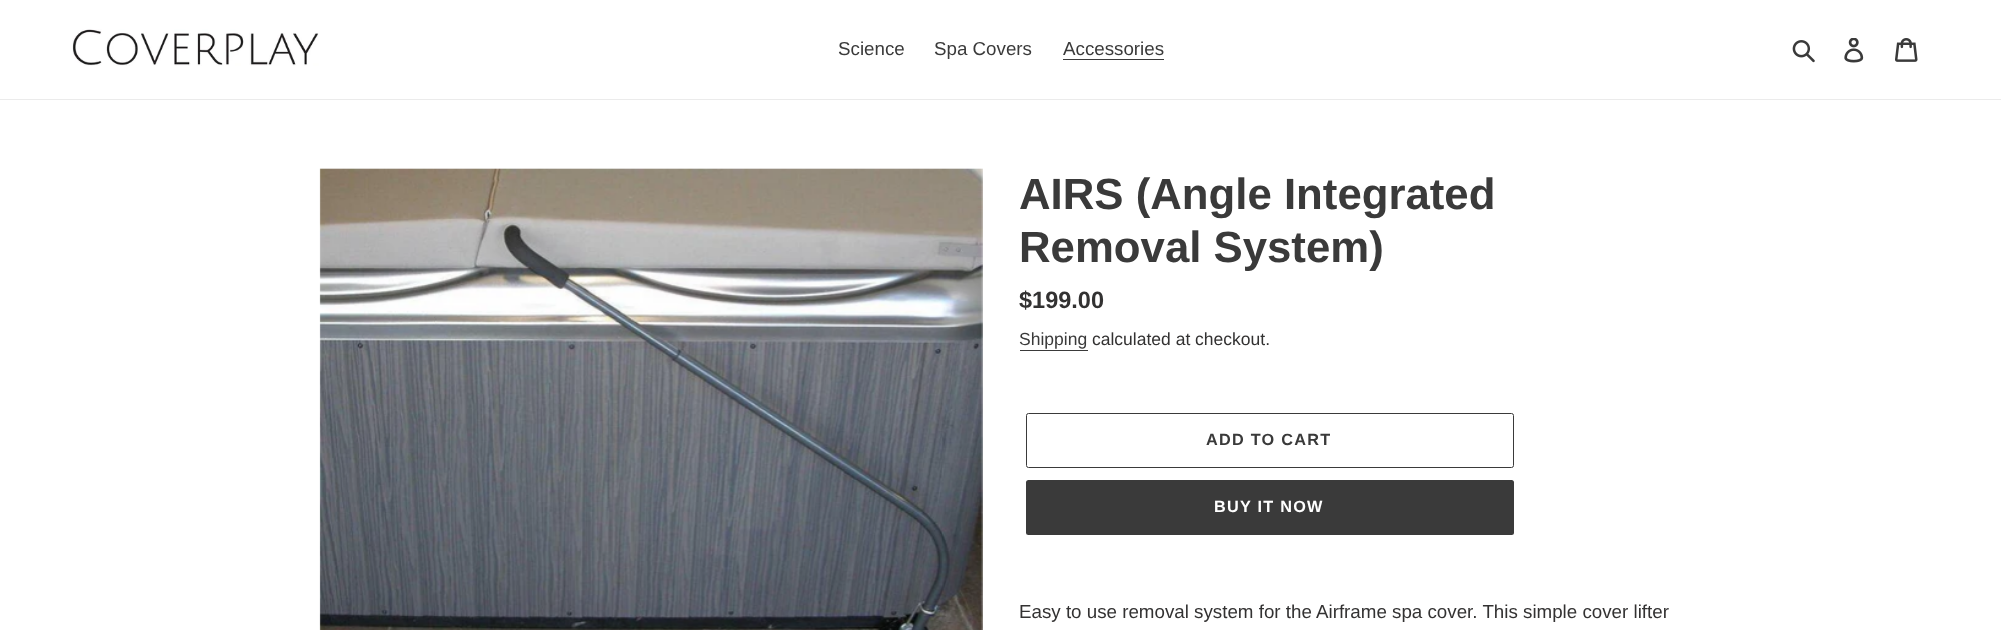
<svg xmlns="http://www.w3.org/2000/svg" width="2001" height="630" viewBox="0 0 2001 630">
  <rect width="100%" height="100%" fill="#fff"/>
  <path d="M0 99h2001v1H0z" fill="#ebebeb"/>
  <image x="72" y="29" width="247" height="37" href="img/1.png"/>
  <path d="M1063 59h101v1H1063z" fill="#3a3a3a"/>
  <image x="1792" y="40" width="23" height="23" href="img/2.png"/>
  <image x="1844" y="38" width="20" height="25" href="img/3.png"/>
  <image x="1895" y="38" width="23" height="24" href="img/4.png"/>
  <image x="319" y="168" width="664" height="462" href="img/5.png"/>
  <path d="M1020 350h68v1H1020z" fill="#3a3a3a"/>
  <rect x="1026.5" y="413.5" width="487" height="54" rx="2" fill="none" stroke="#3a3a3a"/>
  <rect x="1026" y="480" width="488" height="55" rx="2.5" fill="#3a3a3a"/>
  <g font-family="Liberation Sans" font-size="18.75" fill="#3a3a3a">
    <text x="838" y="55">Science</text>
    <text x="934" y="55">Spa Covers</text>
    <text x="1063" y="55">Accessories</text>
  </g>
  <g font-family="Liberation Sans" font-size="43.75" font-weight="bold" fill="#3a3a3a">
    <text x="1019" y="209">AIRS (Angle Integrated</text>
    <text x="1019" y="262">Removal System)</text>
  </g>
  <text x="1019" y="308" font-family="Liberation Sans" font-size="23.5" font-weight="bold" fill="#333232">$199.00</text>
  <text x="1019" y="345" font-family="Liberation Sans" font-size="17.5" fill="#3a3a3a">Shipping</text>
  <text x="1092" y="345" font-family="Liberation Sans" font-size="17.5" fill="#333232">calculated at checkout.</text>
  <text x="1206" y="445" font-family="Liberation Sans" font-size="16.25" font-weight="bold" letter-spacing="1.25" fill="#3a3a3a">ADD TO CART</text>
  <text x="1214" y="512" font-family="Liberation Sans" font-size="16.25" font-weight="bold" letter-spacing="1.25" fill="#fff">BUY IT NOW</text>
  <text x="1019" y="618" font-family="Liberation Sans" font-size="18.75" fill="#333232">Easy to use removal system for the Airframe spa cover. This simple cover lifter</text>
</svg>
